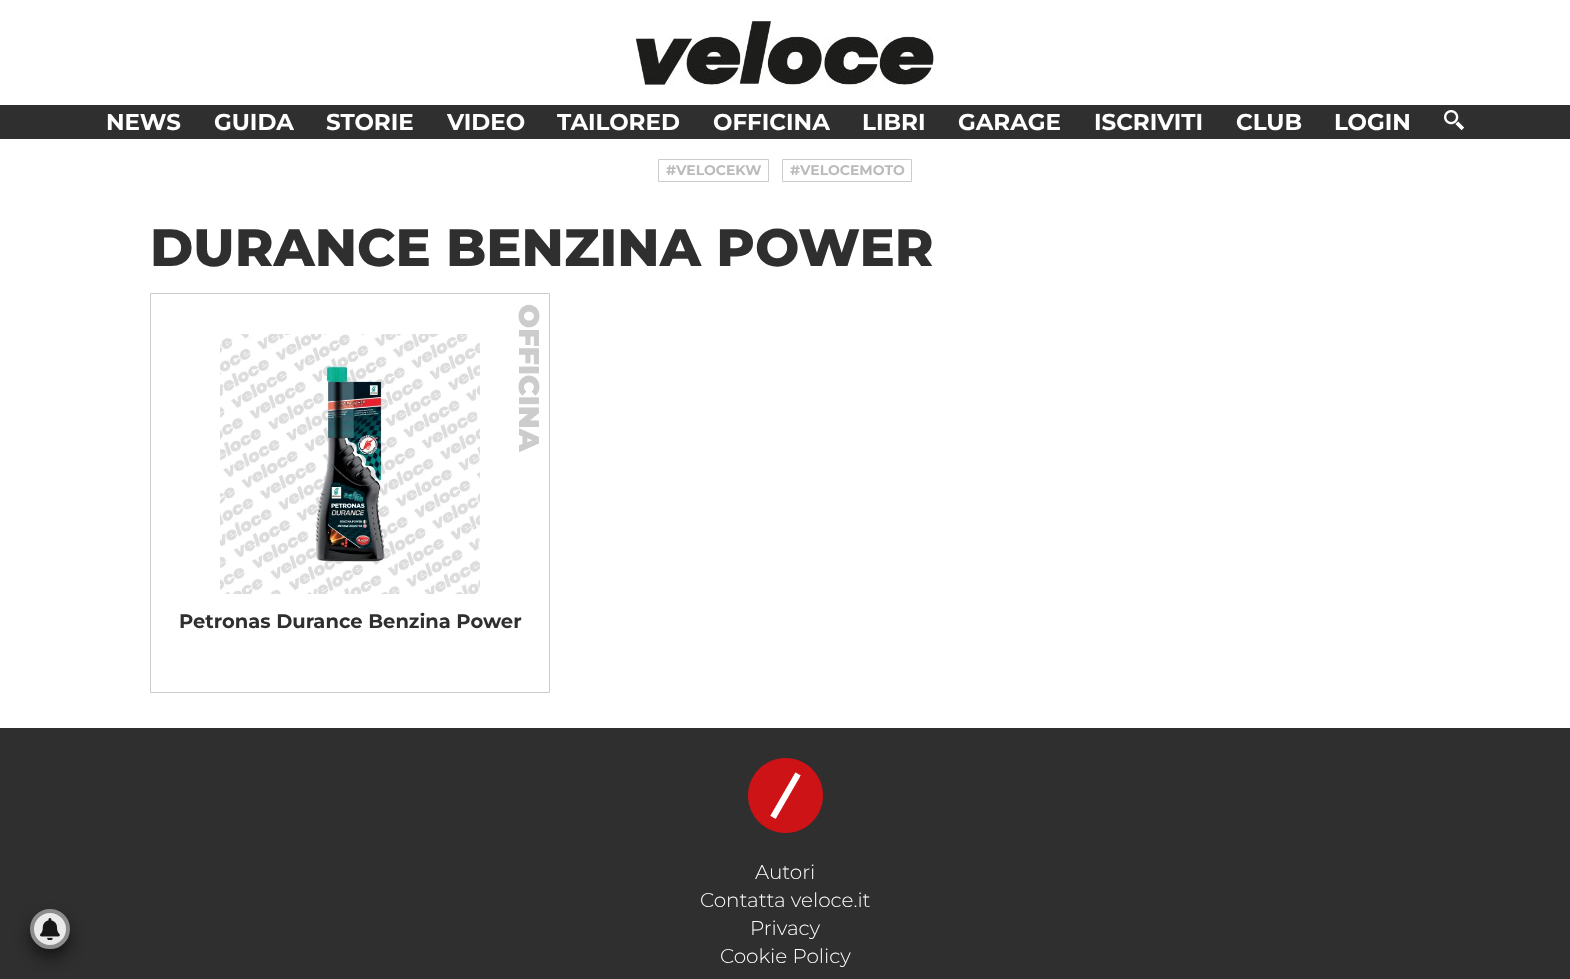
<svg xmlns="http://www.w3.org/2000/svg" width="1570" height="979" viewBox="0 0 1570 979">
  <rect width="100%" height="100%" fill="#fff"/>
  <image x="635" y="21" width="300" height="64" href="img/1.png"/>
  <path d="M0 105h1570v34H0z" fill="#2f2f2f"/>
  <image x="1444" y="110" width="20" height="20" href="img/2.png"/>
  <path d="M658.5 159.5h110v22H658.5z" fill="none" stroke="#ccc"/>
  <path d="M782.5 159.5h129v22H782.5z" fill="none" stroke="#ccc"/>
  <path d="M150.5 293.5h399v399H150.5z" fill="none" stroke="#ccc"/>
  <image x="220" y="334" width="260" height="260" href="img/3.png"/>
  <path d="M0 728h1570v251H0z" fill="#2f2f2f"/>
  <rect x="30" y="918" width="40" height="40" rx="20" fill="#05050599" filter="blur(7.5px)"/>
  <circle cx="50" cy="929" r="18" fill="#eaeaea" stroke="#8d8d8d" stroke-width="4"/>
  <image x="40" y="918" width="20" height="22" href="img/4.png"/>
  <image x="748" y="758" width="75" height="75" href="img/5.png"/>
  <g font-family="Montserrat" font-size="23" font-weight="bold" fill="#fff">
    <text x="106" y="130">NEWS</text>
    <text x="214" y="130">GUIDA</text>
    <text x="326" y="130">STORIE</text>
    <text x="447" y="130">VIDEO</text>
    <text x="557" y="130">TAILORED</text>
    <text x="713" y="130">OFFICINA</text>
    <text x="862" y="130">LIBRI</text>
    <text x="958" y="130">GARAGE</text>
    <text x="1094" y="130">ISCRIVITI</text>
    <text x="1236" y="130">CLUB</text>
    <text x="1334" y="130">LOGIN</text>
  </g>
  <g font-family="Montserrat" font-size="14" font-weight="bold" fill="#bbb">
    <text x="666" y="175">#VELOCEKW</text>
    <text x="790" y="175">#VELOCEMOTO</text>
  </g>
  <text x="150" y="266" font-family="Montserrat" font-size="52.5" font-weight="800" fill="#2f2f2f">DURANCE BENZINA POWER</text>
  <text x="519" y="304" transform="rotate(90 519 304)" font-family="Montserrat" font-size="28.5" font-weight="900" fill="#ccc">OFFICINA</text>
  <text x="179" y="628" font-family="Montserrat" font-size="19.5" font-weight="bold" fill="#2f2f2f">Petronas Durance Benzina Power</text>
  <g font-family="Montserrat" font-size="20" font-weight="300" fill="#fff">
    <text x="755" y="879">Autori</text>
    <text x="700" y="907">Contatta veloce.it</text>
    <text x="750" y="935">Privacy</text>
    <text x="720" y="963">Cookie Policy</text>
  </g>
</svg>
